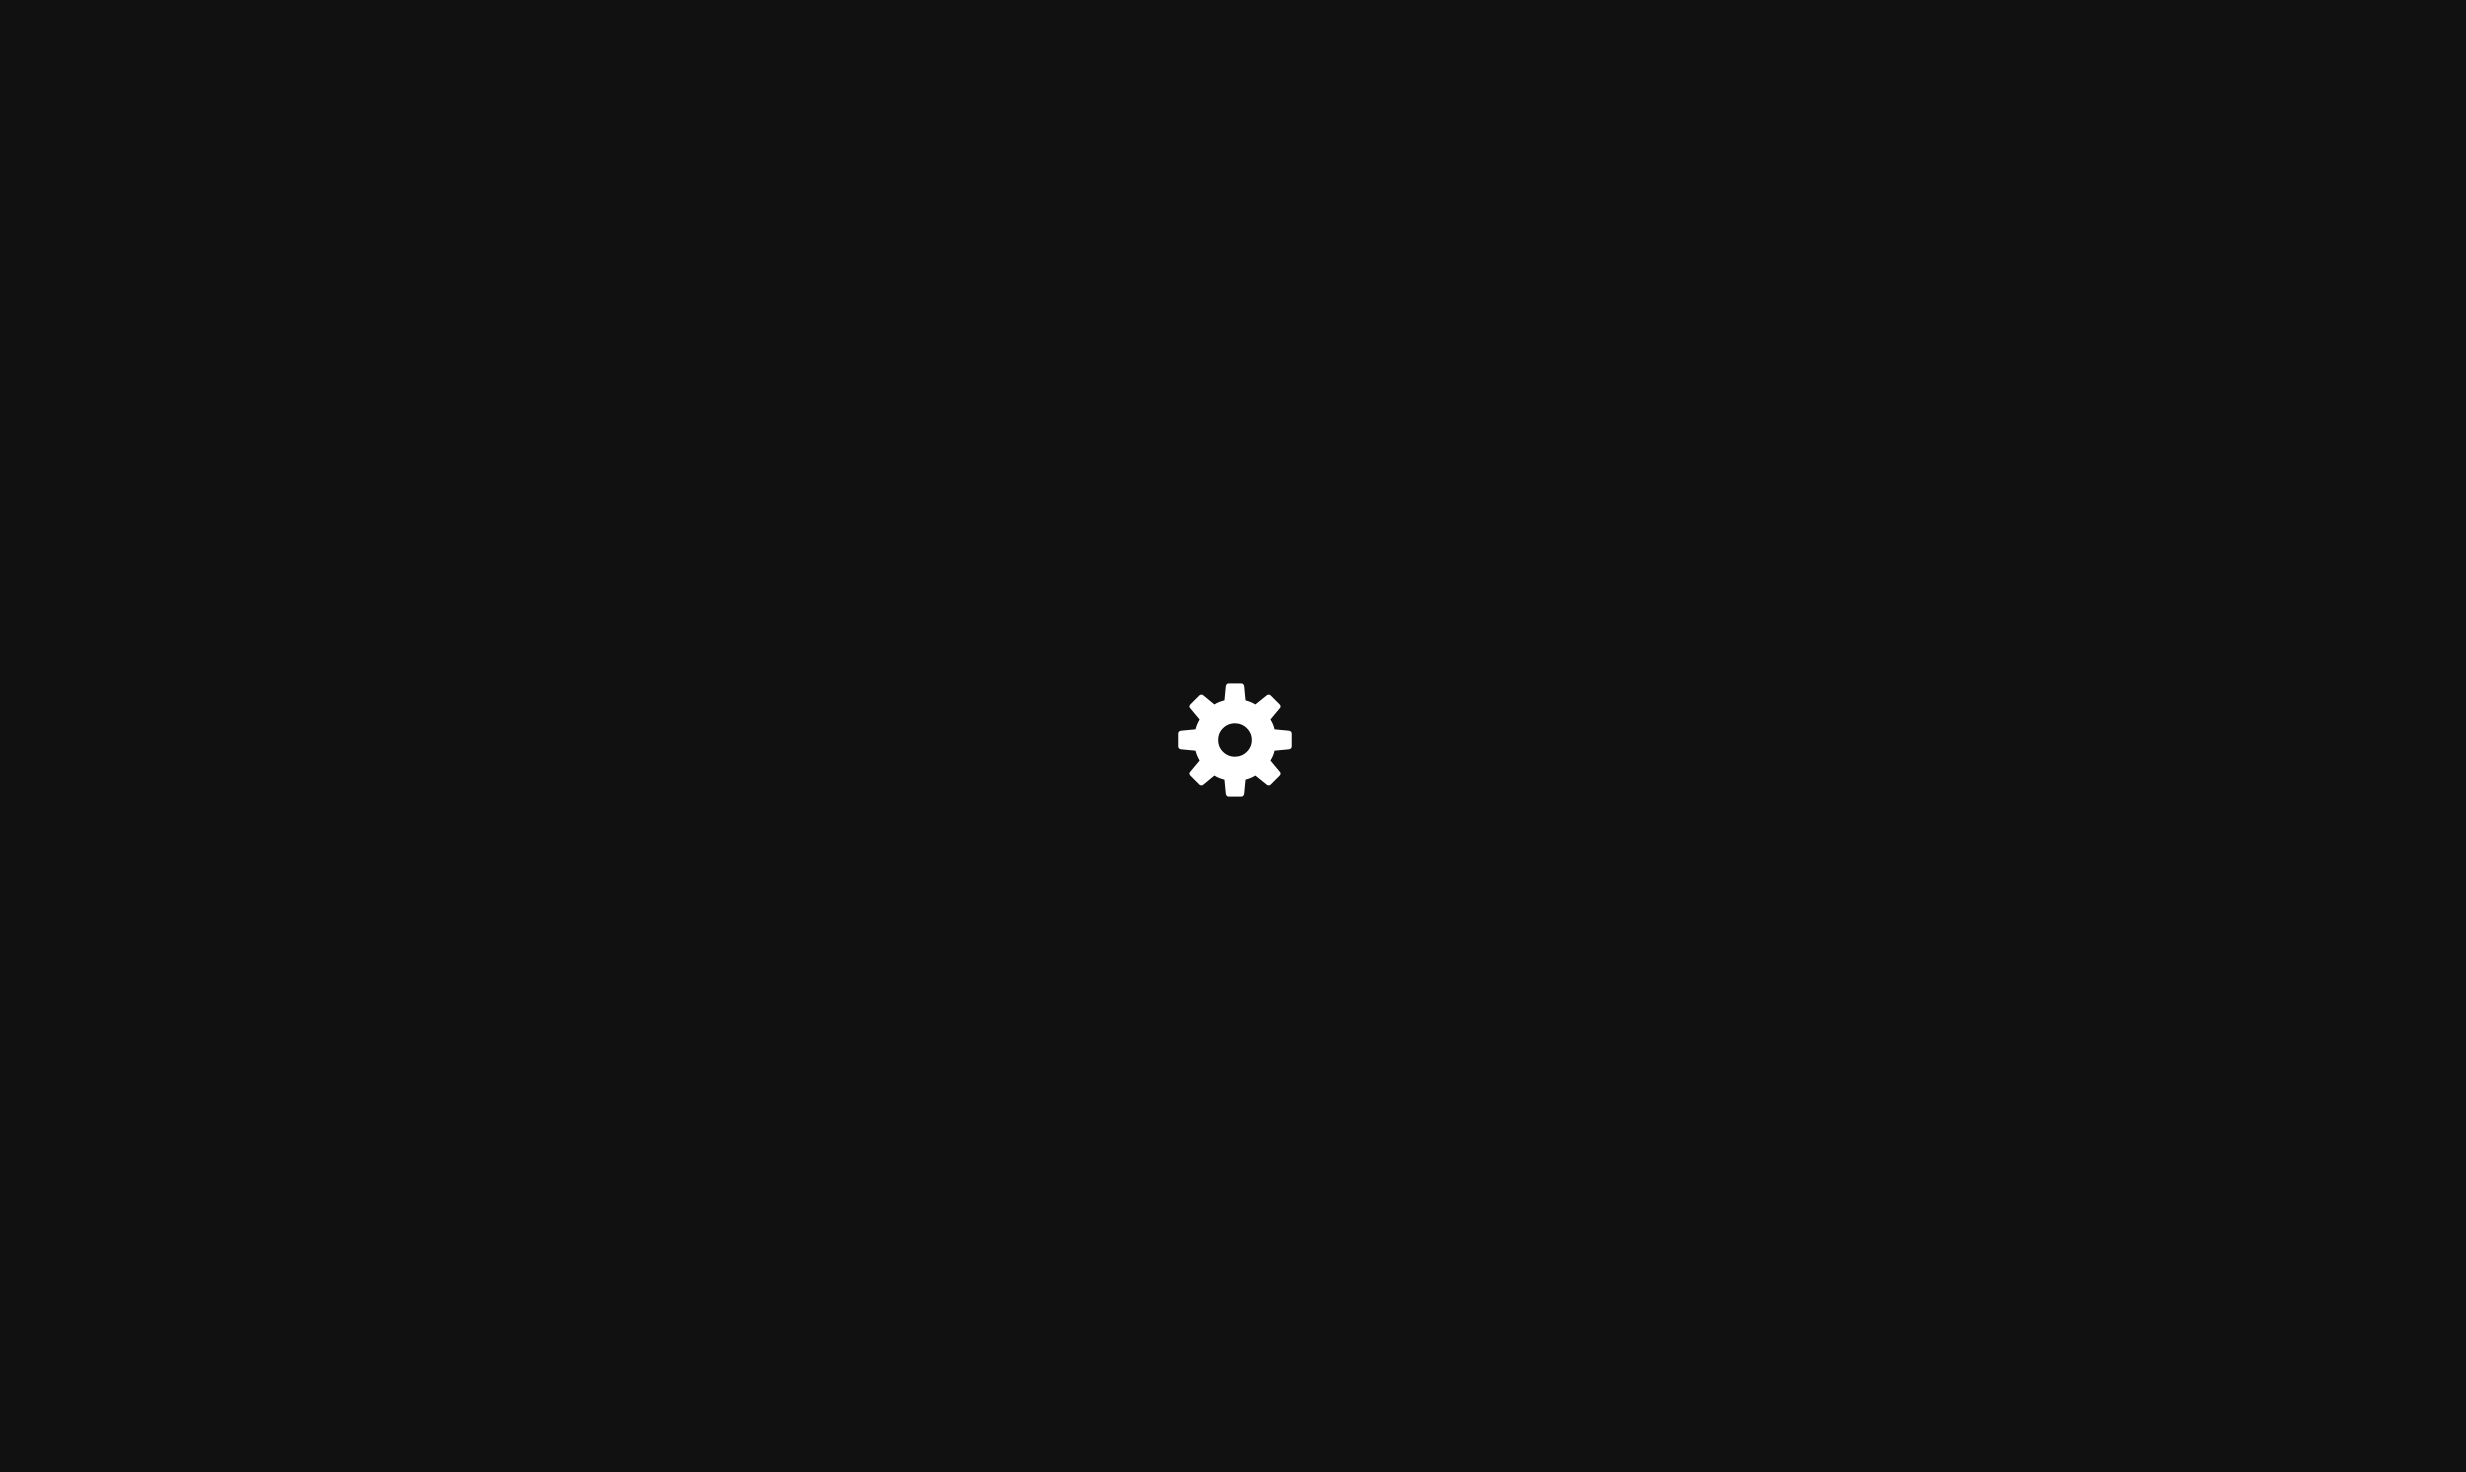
<svg xmlns="http://www.w3.org/2000/svg" width="2466" height="1472" viewBox="0 0 2466 1472">
  <rect width="100%" height="100%" fill="#111"/>
  <image x="1178" y="683" width="114" height="114" href="img/1.png"/>
</svg>
